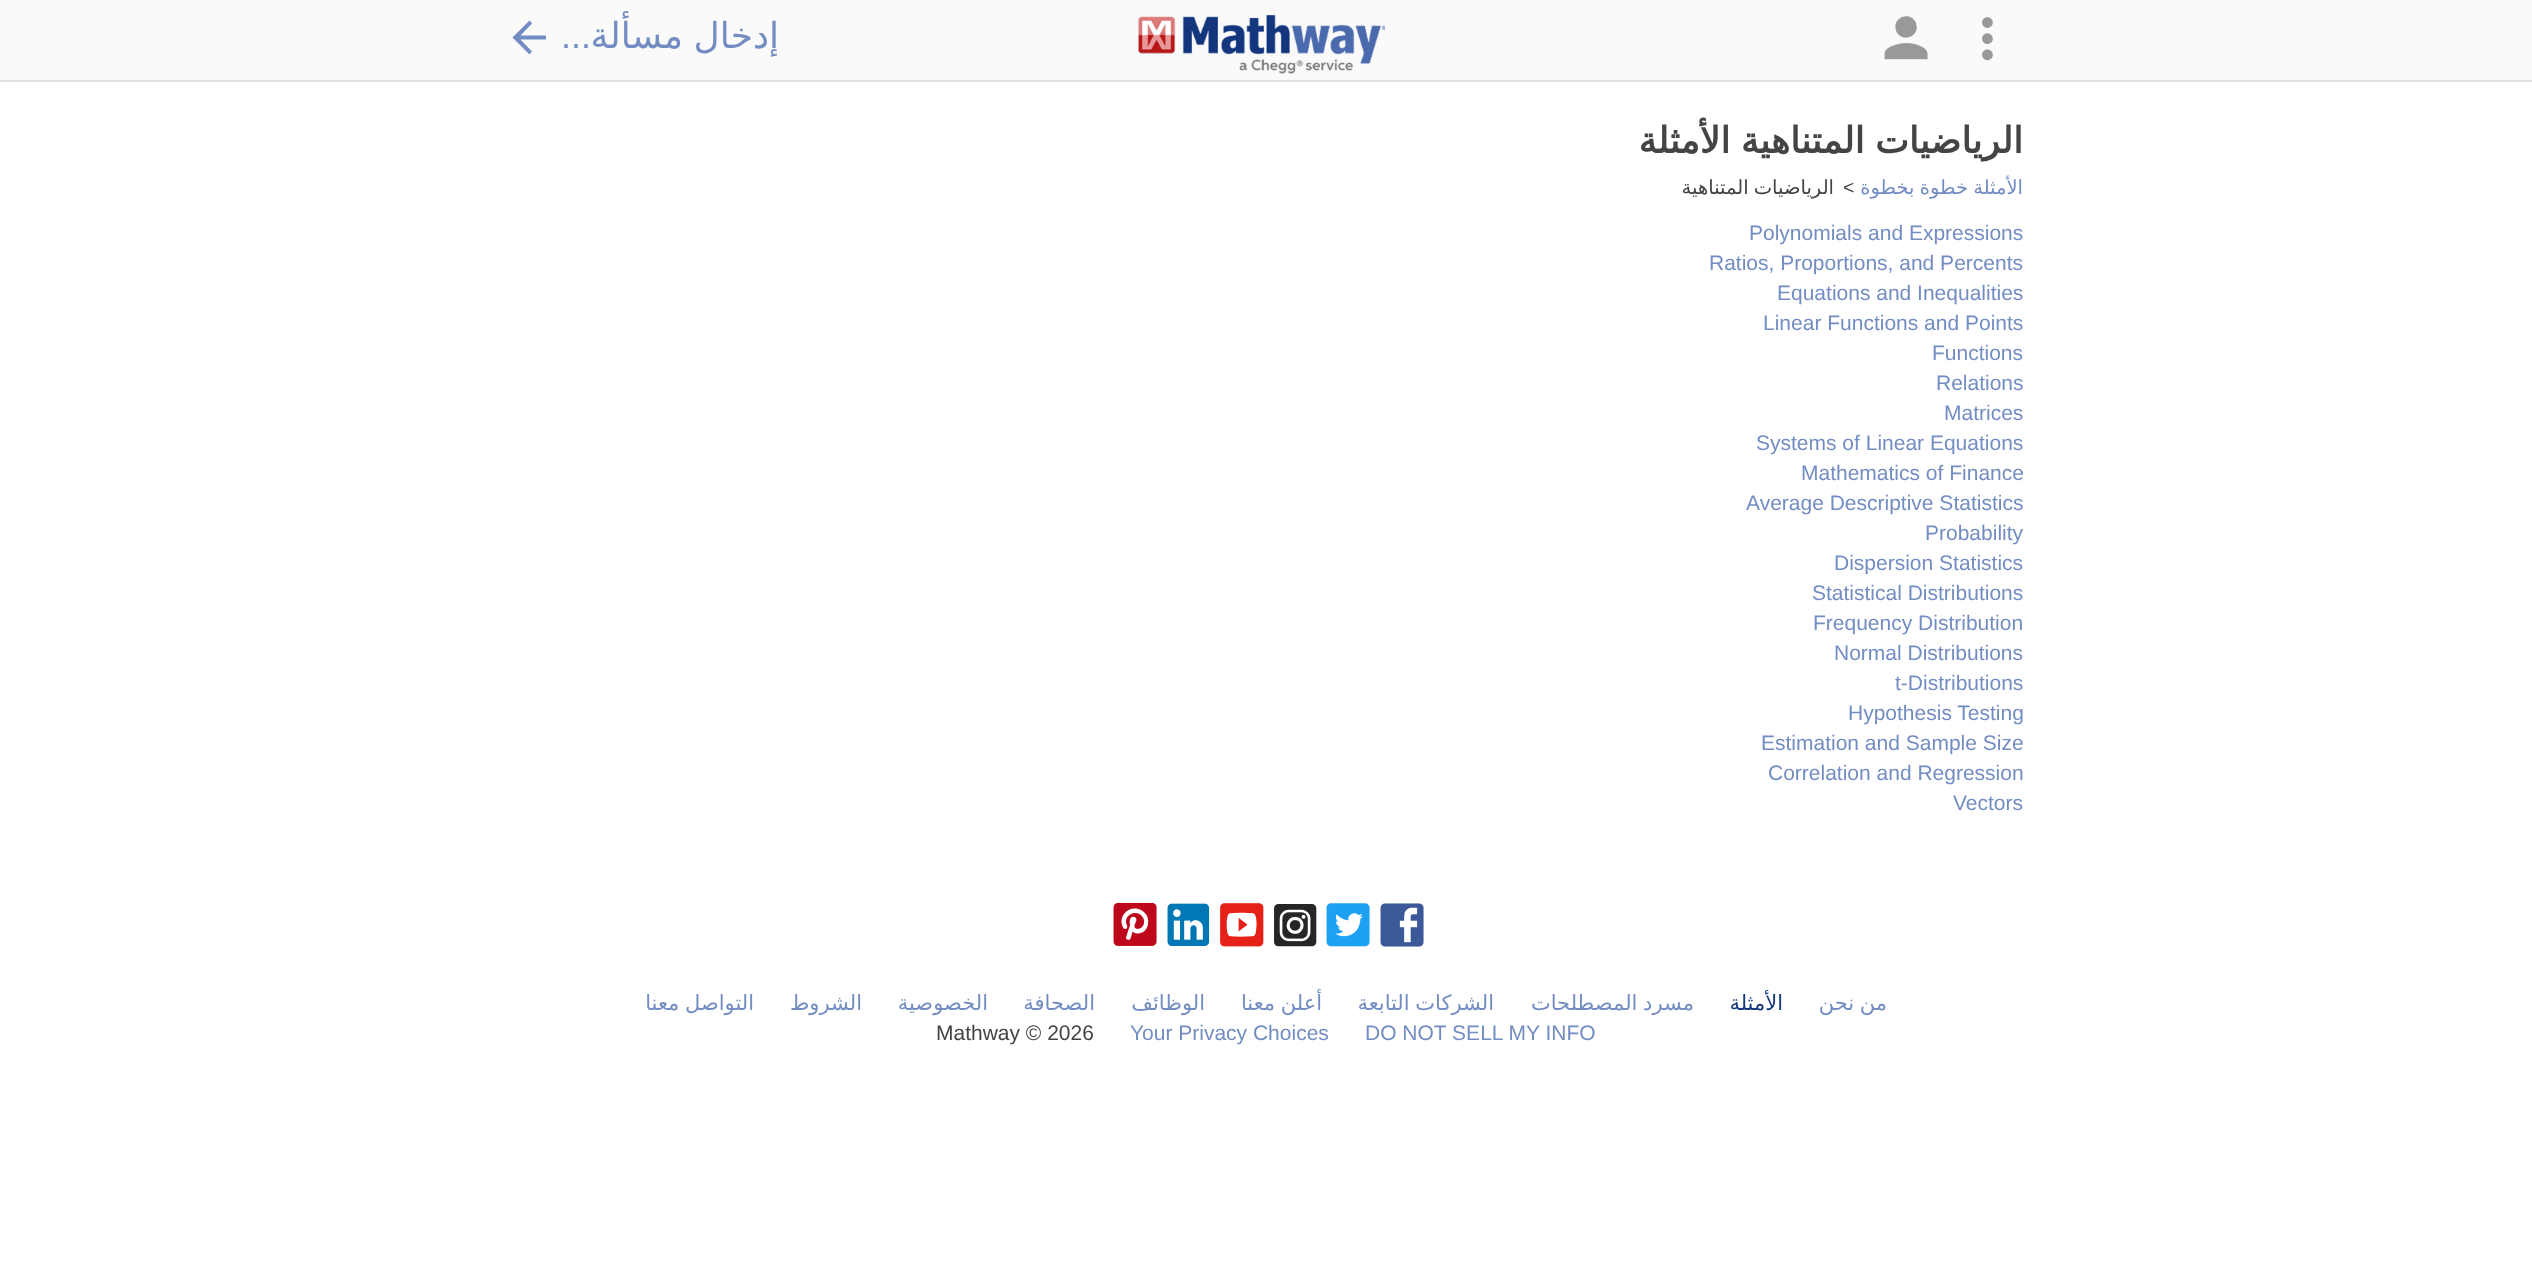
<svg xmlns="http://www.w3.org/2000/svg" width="2532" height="1276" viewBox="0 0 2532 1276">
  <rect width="100%" height="100%" fill="#fff"/>
  <path d="M0 80h2532v2H0z" fill="#e1e1e1"/>
  <path d="M0 0h2532v80H0z" fill="#fafafa"/>
  <path d="M529.5 20.5L512.5 37.5L529.5 54.5L532 51.5L520.5 39.5H546V35.5H520.5L532 23.5Z" fill="#738dc3"/>
  <image x="1138" y="15" width="248" height="59" href="img/1.png"/>
  <image x="1884" y="16" width="44" height="44" href="img/2.png"/>
  <image x="1982" y="17" width="11" height="44" href="img/3.png"/>
  <image x="1113" y="902" width="44" height="44" href="img/4.png"/>
  <image x="1167" y="903" width="43" height="43" href="img/5.png"/>
  <image x="1220" y="903" width="44" height="44" href="img/6.png"/>
  <image x="1274" y="904" width="43" height="43" href="img/7.png"/>
  <image x="1326" y="903" width="44" height="44" href="img/8.png"/>
  <image x="1380" y="903" width="44" height="44" href="img/9.png"/>
  <text x="591" y="48" font-family="Liberation Sans" font-size="36" direction="rtl" fill="#738dc3">...</text>
  <text x="779" y="48" word-spacing="-1" font-family="DejaVu Sans" font-size="36" direction="rtl" fill="#738dc3">إدخال مسألة</text>
  <text x="2023" y="153" word-spacing="-1" font-family="DejaVu Sans" font-size="36" font-weight="bold" direction="rtl" fill="#444">الرياضيات المتناهية الأمثلة</text>
  <text x="1834" y="194" word-spacing="-1" font-family="DejaVu Sans" font-size="19.5" direction="rtl" fill="#444">الرياضيات المتناهية</text>
  <text x="1843" y="194" font-family="Liberation Sans" font-size="19.5" fill="#444">&lt;</text>
  <text x="2023" y="194" word-spacing="-1" font-family="DejaVu Sans" font-size="19.5" direction="rtl" fill="#738dc3">الأمثلة خطوة بخطوة</text>
  <g font-family="Liberation Sans" font-size="21" fill="#738dc3">
    <text x="1749" y="240">Polynomials and Expressions</text>
    <text x="1709" y="270">Ratios, Proportions, and Percents</text>
    <text x="1777" y="300">Equations and Inequalities</text>
    <text x="1763" y="330">Linear Functions and Points</text>
    <text x="1932" y="360">Functions</text>
    <text x="1936" y="390">Relations</text>
    <text x="1944" y="420">Matrices</text>
    <text x="1756" y="450">Systems of Linear Equations</text>
    <text x="1801" y="480">Mathematics of Finance</text>
    <text x="1746" y="510">Average Descriptive Statistics</text>
    <text x="1925" y="540">Probability</text>
    <text x="1834" y="570">Dispersion Statistics</text>
    <text x="1812" y="600">Statistical Distributions</text>
    <text x="1813" y="630">Frequency Distribution</text>
    <text x="1834" y="660">Normal Distributions</text>
    <text x="1895" y="690">t-Distributions</text>
    <text x="1848" y="720">Hypothesis Testing</text>
    <text x="1761" y="750">Estimation and Sample Size</text>
    <text x="1768" y="780">Correlation and Regression</text>
    <text x="1953" y="810">Vectors</text>
  </g>
  <g font-family="DejaVu Sans" font-size="21" direction="rtl" fill="#738dc3">
    <text x="754" y="1010" word-spacing="-1">التواصل معنا</text>
    <text x="862" y="1010">الشروط</text>
    <text x="988" y="1010">الخصوصية</text>
    <text x="1095" y="1010">الصحافة</text>
    <text x="1205" y="1010">الوظائف</text>
    <text x="1322" y="1010" word-spacing="-1">أعلن معنا</text>
    <text x="1494" y="1010" word-spacing="-1">الشركات التابعة</text>
    <text x="1694" y="1010" word-spacing="-1">مسرد المصطلحات</text>
  </g>
  <text x="1783" y="1010" font-family="DejaVu Sans" font-size="21" direction="rtl" fill="#16387c">الأمثلة</text>
  <text x="1887" y="1010" word-spacing="-1" font-family="DejaVu Sans" font-size="21" direction="rtl" fill="#738dc3">من نحن</text>
  <text x="936" y="1040" font-family="Liberation Sans" font-size="21" fill="#444">Mathway © 2026</text>
  <g font-family="Liberation Sans" font-size="21" fill="#738dc3">
    <text x="1130" y="1040">Your Privacy Choices</text>
    <text x="1365" y="1040">DO NOT SELL MY INFO</text>
  </g>
</svg>
